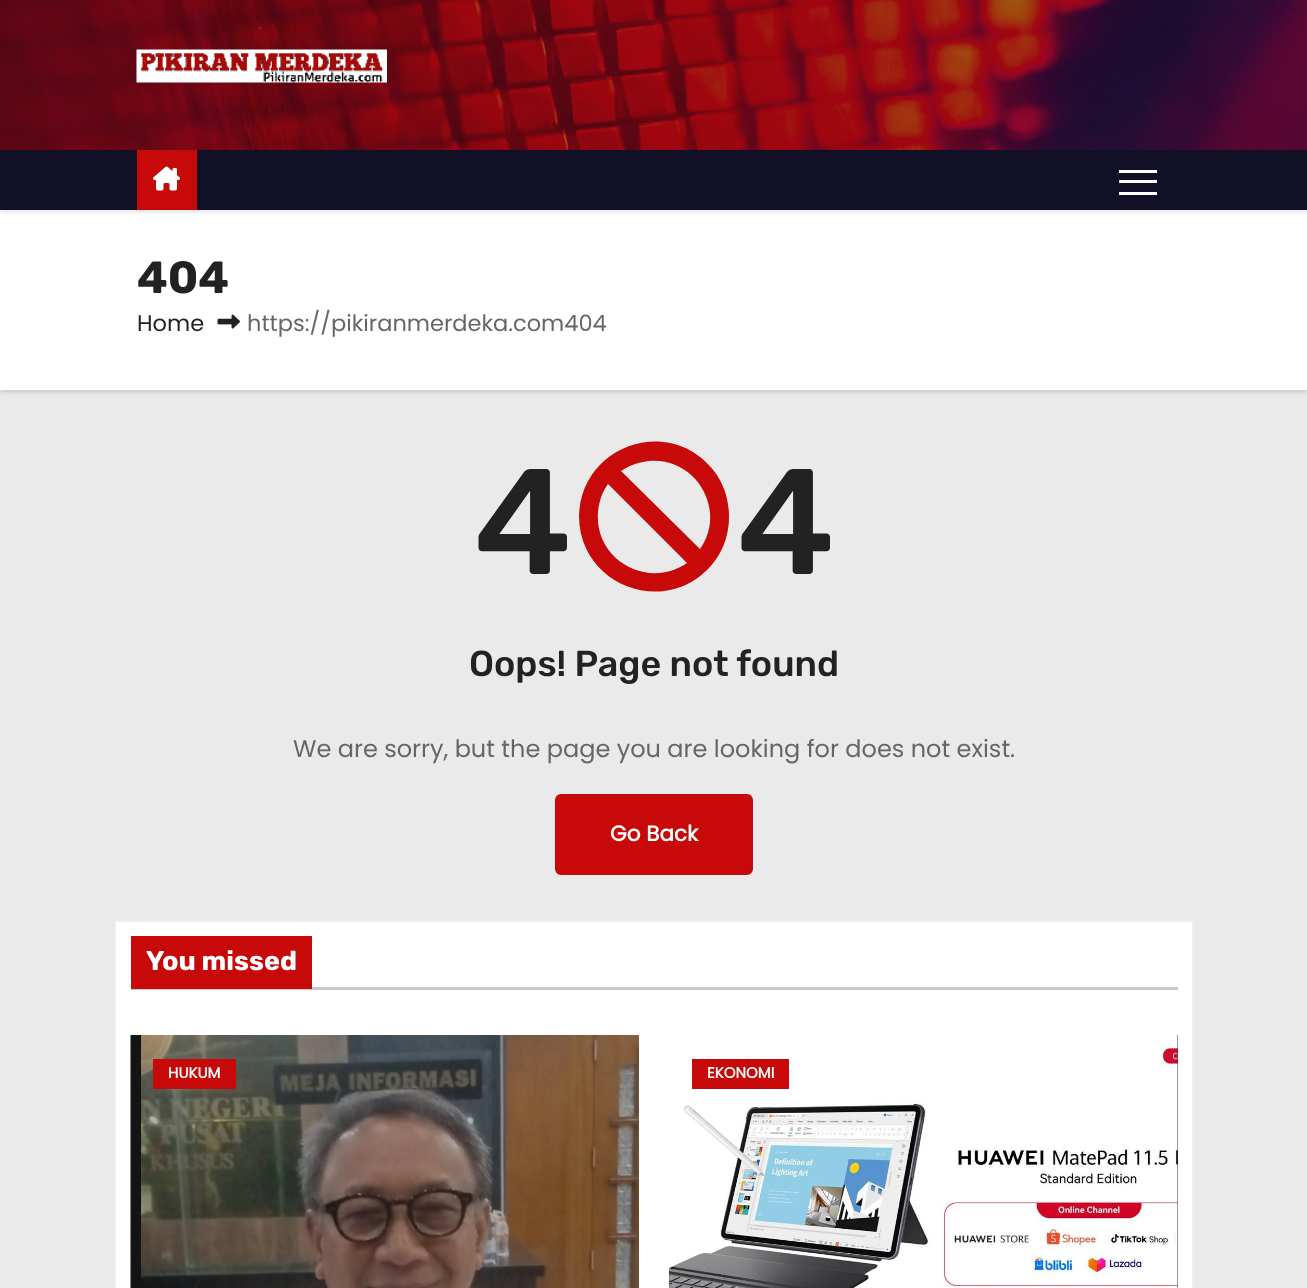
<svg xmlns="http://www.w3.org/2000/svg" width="1307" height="1288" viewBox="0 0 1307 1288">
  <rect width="100%" height="100%" fill="#eaeaea"/>
  <image x="0" y="0" width="1307" height="150" href="img/1.png"/>
  <image x="136" y="49" width="251" height="34" href="img/2.png"/>
  <path d="M0 212h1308v180H0z" fill="#00000026" filter="blur(2px)"/>
  <path d="M0 210h1307v180H0z" fill="#fff"/>
  <path d="M0 153h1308v60H0z" fill="#00000014" filter="blur(1.5px)"/>
  <path d="M0 150h1307v60H0z" fill="#121026"/>
  <path d="M137 150h60v60H137z" fill="#c70909"/>
  <image x="153" y="166" width="27" height="25" href="img/3.png"/>
  <path d="M1119 170h38v3H1119z" fill="#fff"/>
  <path d="M1119 180h38v3H1119z" fill="#fff"/>
  <path d="M1119 192h38v3H1119z" fill="#fff"/>
  <image x="217" y="314" width="23" height="15" href="img/4.png"/>
  <path d="M687 563L608 484C602 492 599 502 598 512C594 560 648 590 687 563ZM700 549C727 511 697 457 649 461C639 462 630 465 621 471ZM579 517C580 445 670 414 714 471C724 484 729 500 729 517C729 533 724 549 714 562C670 619 580 588 579 517Z" fill="#c70909"/>
  <rect x="556.5" y="795.5" width="195" height="78" rx="4.5" fill="#c70909" stroke="#c70909" stroke-width="3"/>
  <path d="M115 921h1078v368H115z" fill="#fff" stroke="#eee" stroke-width="2"/>
  <path d="M131 987h1047v3H131z" fill="#c8c8cd"/>
  <path d="M131 936h181v53H131z" fill="#c70909"/>
  <image x="130" y="1035" width="509" height="253" href="img/5.png"/>
  <path d="M153 1059h83v30H153z" fill="#c70909"/>
  <path d="M1177 1035h1v253H1177z" fill="#333"/>
  <image x="669" y="1035" width="509" height="253" href="img/6.png"/>
  <path d="M692 1059h97v30H692z" fill="#c70909"/>
  <text x="137" y="293" font-family="Rubik" font-size="45" font-weight="bold" fill="#222">404</text>
  <text x="137" y="331" font-family="Poppins" font-size="22.5" fill="#222">Home</text>
  <text x="247" y="331" font-family="Poppins" font-size="22.5" fill="#666">https://pikiranmerdeka.com404</text>
  <g font-family="Rubik" font-size="150" font-weight="500" fill="#222">
    <text x="474" y="574">4</text>
    <text x="737" y="574">4</text>
  </g>
  <text x="469" y="676" font-family="Rubik" font-size="36" font-weight="500" fill="#222">Oops! Page not found</text>
  <text x="293" y="757" font-family="Poppins" font-size="24" fill="#666">We are sorry, but the page you are looking for does not exist.</text>
  <text x="610" y="841" font-family="Poppins" font-size="21.5" font-weight="bold" fill="#fff">Go Back</text>
  <text x="146" y="970" font-family="Rubik" font-size="27" font-weight="bold" fill="#fff">You missed</text>
  <g font-family="Poppins" font-size="15" font-weight="bold" fill="#fff">
    <text x="168" y="1078">HUKUM</text>
    <text x="707" y="1078">EKONOMI</text>
  </g>
</svg>
